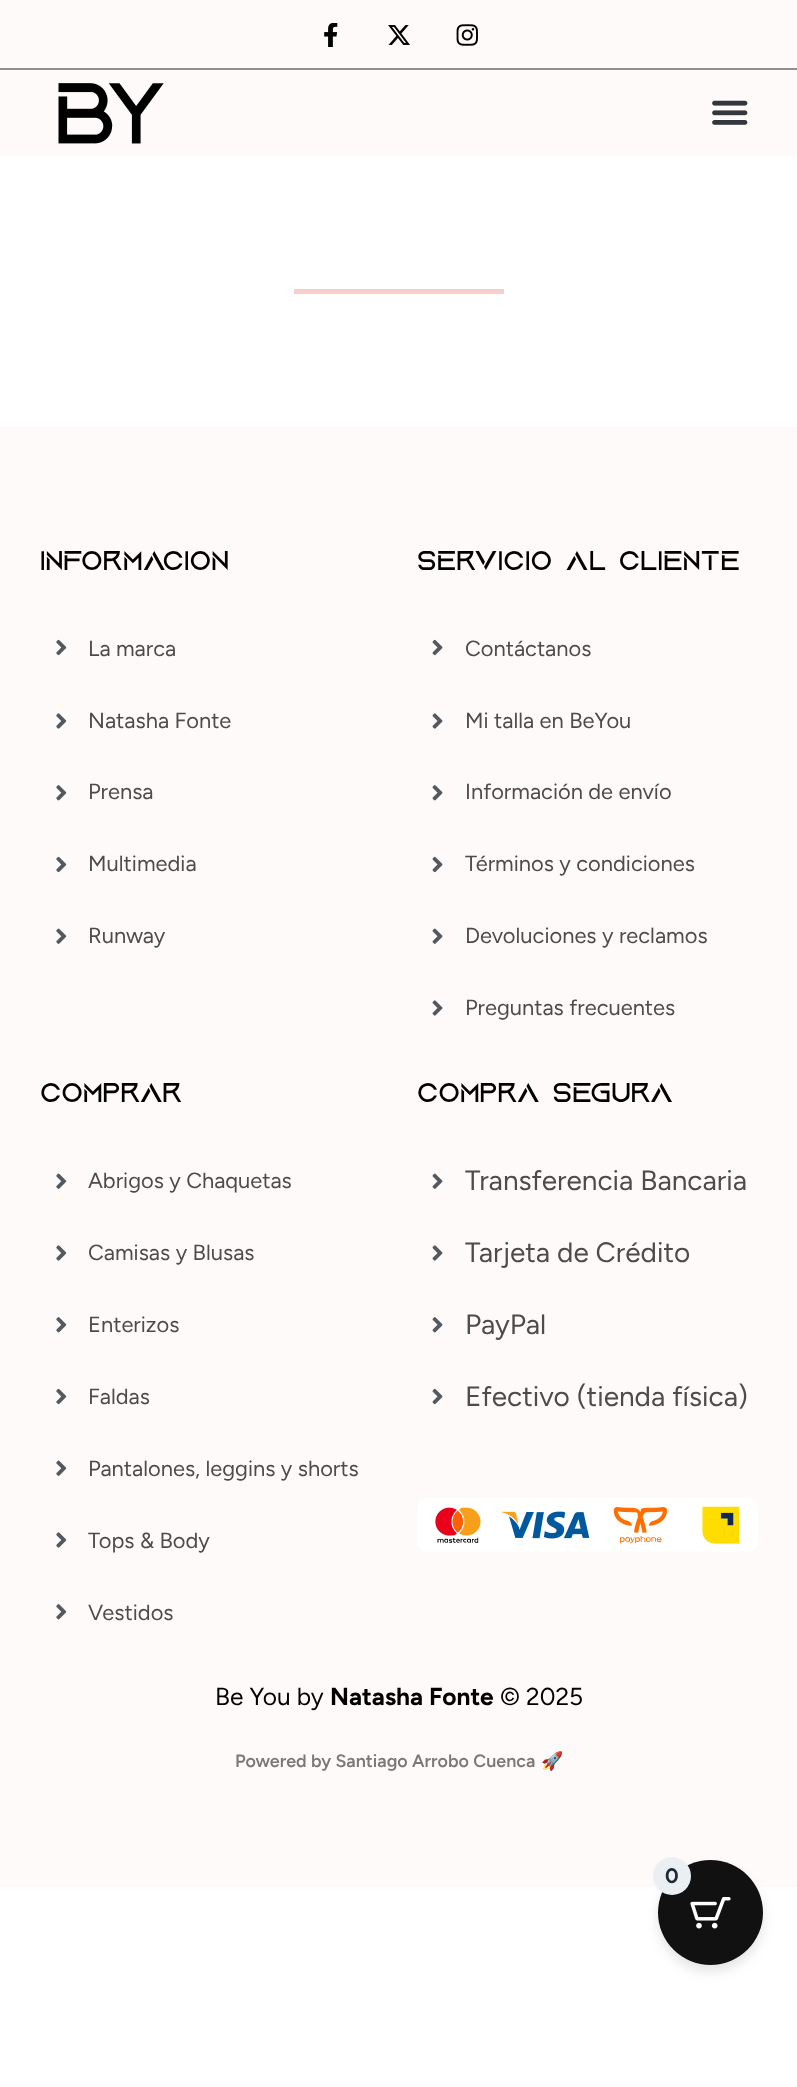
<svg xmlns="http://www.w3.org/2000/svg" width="797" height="2087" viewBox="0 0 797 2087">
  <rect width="100%" height="100%" fill="#fff"/>
  <path d="M0 0h797v68H0z" fill="#fffafa"/>
  <path d="M0 68h797v2H0z" fill="#918e8e"/>
  <image x="324" y="23" width="14" height="24" href="img/1.png"/>
  <image x="388" y="25" width="22" height="20" href="img/2.png"/>
  <image x="456" y="24" width="22" height="22" href="img/3.png"/>
  <path d="M0 70h797v86H0z" fill="#fffafa"/>
  <image x="58" y="83" width="106" height="61" href="img/4.png"/>
  <image x="712" y="100" width="36" height="25" href="img/5.png"/>
  <path d="M294 289h210v5H294z" fill="#f6cfca"/>
  <path d="M0 427h797v1460H0z" fill="#fffafa"/>
  <image x="56" y="639" width="11" height="17" href="img/6.png"/>
  <image x="56" y="713" width="11" height="16" href="img/7.png"/>
  <image x="56" y="785" width="11" height="16" href="img/8.png"/>
  <image x="56" y="856" width="11" height="17" href="img/6.png"/>
  <image x="56" y="928" width="11" height="16" href="img/9.png"/>
  <image x="432" y="639" width="11" height="17" href="img/10.png"/>
  <image x="432" y="713" width="11" height="16" href="img/11.png"/>
  <image x="432" y="785" width="11" height="16" href="img/12.png"/>
  <image x="432" y="856" width="11" height="17" href="img/10.png"/>
  <image x="432" y="928" width="11" height="16" href="img/13.png"/>
  <image x="432" y="1000" width="11" height="16" href="img/11.png"/>
  <image x="56" y="1173" width="11" height="16" href="img/9.png"/>
  <image x="56" y="1245" width="11" height="16" href="img/7.png"/>
  <image x="56" y="1317" width="11" height="16" href="img/8.png"/>
  <image x="56" y="1388" width="11" height="17" href="img/6.png"/>
  <image x="56" y="1460" width="11" height="16" href="img/9.png"/>
  <image x="56" y="1532" width="11" height="16" href="img/7.png"/>
  <image x="56" y="1604" width="11" height="16" href="img/8.png"/>
  <image x="432" y="1173" width="11" height="16" href="img/13.png"/>
  <image x="432" y="1245" width="11" height="16" href="img/11.png"/>
  <image x="432" y="1317" width="11" height="16" href="img/12.png"/>
  <image x="432" y="1388" width="11" height="17" href="img/10.png"/>
  <image x="417" y="1498" width="341" height="54" href="img/14.png"/>
  <rect x="658" y="1867" width="105" height="105" rx="52.5" fill="#0000001a" filter="blur(6px)"/>
  <circle cx="710.5" cy="1912.5" r="52.5" fill="#111"/>
  <circle cx="672" cy="1876" r="19" fill="#eaeff3"/>
  <image x="690" y="1897" width="41" height="32" href="img/15.png"/>
  <text x="40" y="570" font-family="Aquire" font-size="28.5" fill="#000">Información</text>
  <g font-family="Figtree" font-size="21.9" fill="#4d4b4b">
    <text x="88" y="656">La marca</text>
    <text x="88" y="728">Natasha Fonte</text>
    <text x="88" y="799">Prensa</text>
    <text x="88" y="871">Multimedia</text>
    <text x="88" y="943">Runway</text>
  </g>
  <text x="417" y="570" font-family="Aquire" font-size="28.5" fill="#000">Servicio al Cliente</text>
  <g font-family="Figtree" font-size="21.9" fill="#4d4b4b">
    <text x="465" y="656">Contáctanos</text>
    <text x="465" y="728">Mi talla en BeYou</text>
    <text x="465" y="799">Información de envío</text>
    <text x="465" y="871">Términos y condiciones</text>
    <text x="465" y="943">Devoluciones y reclamos</text>
    <text x="465" y="1015">Preguntas frecuentes</text>
  </g>
  <text x="40" y="1102" font-family="Aquire" font-size="28.5" fill="#000">Comprar</text>
  <g font-family="Figtree" font-size="21.9" fill="#4d4b4b">
    <text x="88" y="1188">Abrigos y Chaquetas</text>
    <text x="88" y="1260">Camisas y Blusas</text>
    <text x="88" y="1332">Enterizos</text>
    <text x="88" y="1404">Faldas</text>
    <text x="88" y="1476">Pantalones, leggins y shorts</text>
    <text x="88" y="1548">Tops &amp; Body</text>
    <text x="88" y="1620">Vestidos</text>
  </g>
  <text x="417" y="1102" font-family="Aquire" font-size="28.5" fill="#000">COMPRA SEGURA</text>
  <g font-family="Figtree" font-size="28" fill="#4d4b4b">
    <text x="465" y="1190">Transferencia Bancaria</text>
    <text x="465" y="1262">Tarjeta de Crédito</text>
    <text x="465" y="1334">PayPal</text>
    <text x="465" y="1406">Efectivo (tienda física)</text>
  </g>
  <text x="215" y="1705" font-family="Figtree" font-size="24.5" fill="#000">Be You by</text>
  <text x="330" y="1705" font-family="Figtree" font-size="24.5" font-weight="bold" fill="#000">Natasha Fonte</text>
  <text x="500" y="1705" font-family="Figtree" font-size="24.5" fill="#000">© 2025</text>
  <text x="235" y="1767" font-family="Figtree" font-size="17.9" font-weight="600" fill="#7a7878">Powered by Santiago Arrobo Cuenca</text>
  <text x="541" y="1767" font-family="Noto Color Emoji" font-size="17.9" font-weight="bold" fill="#7a7878">🚀</text>
  <text x="665" y="1883" font-family="Figtree" font-size="21" font-weight="bold" fill="#1f2937">0</text>
</svg>
